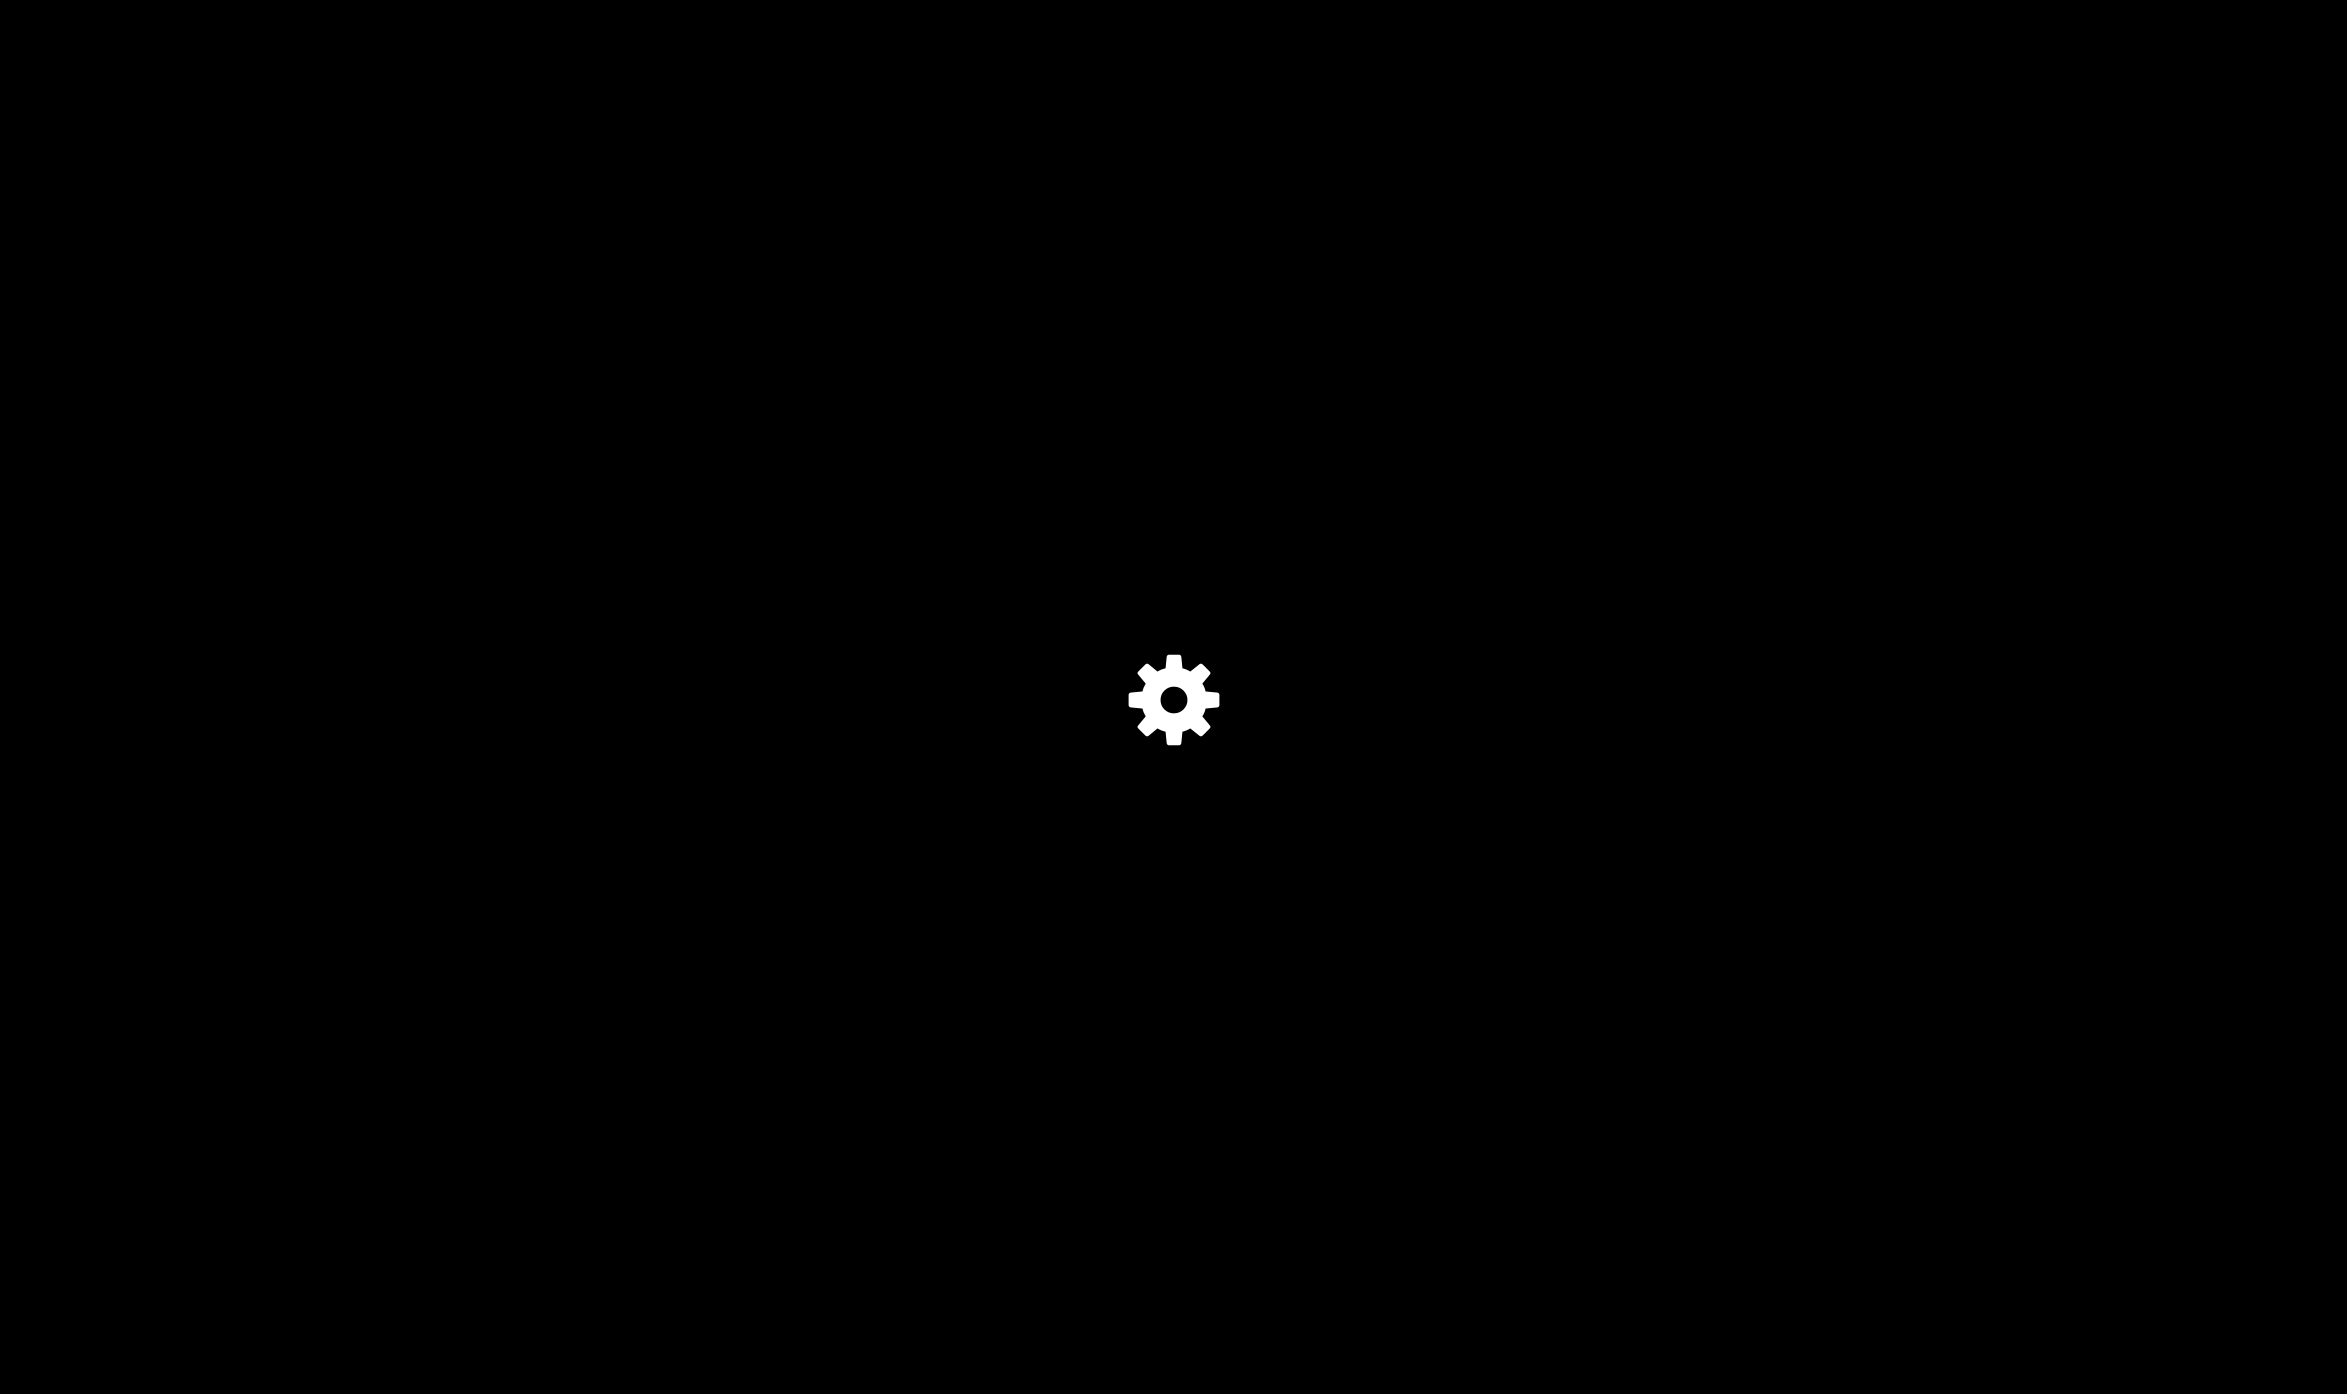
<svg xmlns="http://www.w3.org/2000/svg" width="2347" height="1394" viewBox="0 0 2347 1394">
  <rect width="100%" height="100%" fill="#000"/>
  <image x="1128" y="654" width="92" height="92" href="img/1.png"/>
</svg>
